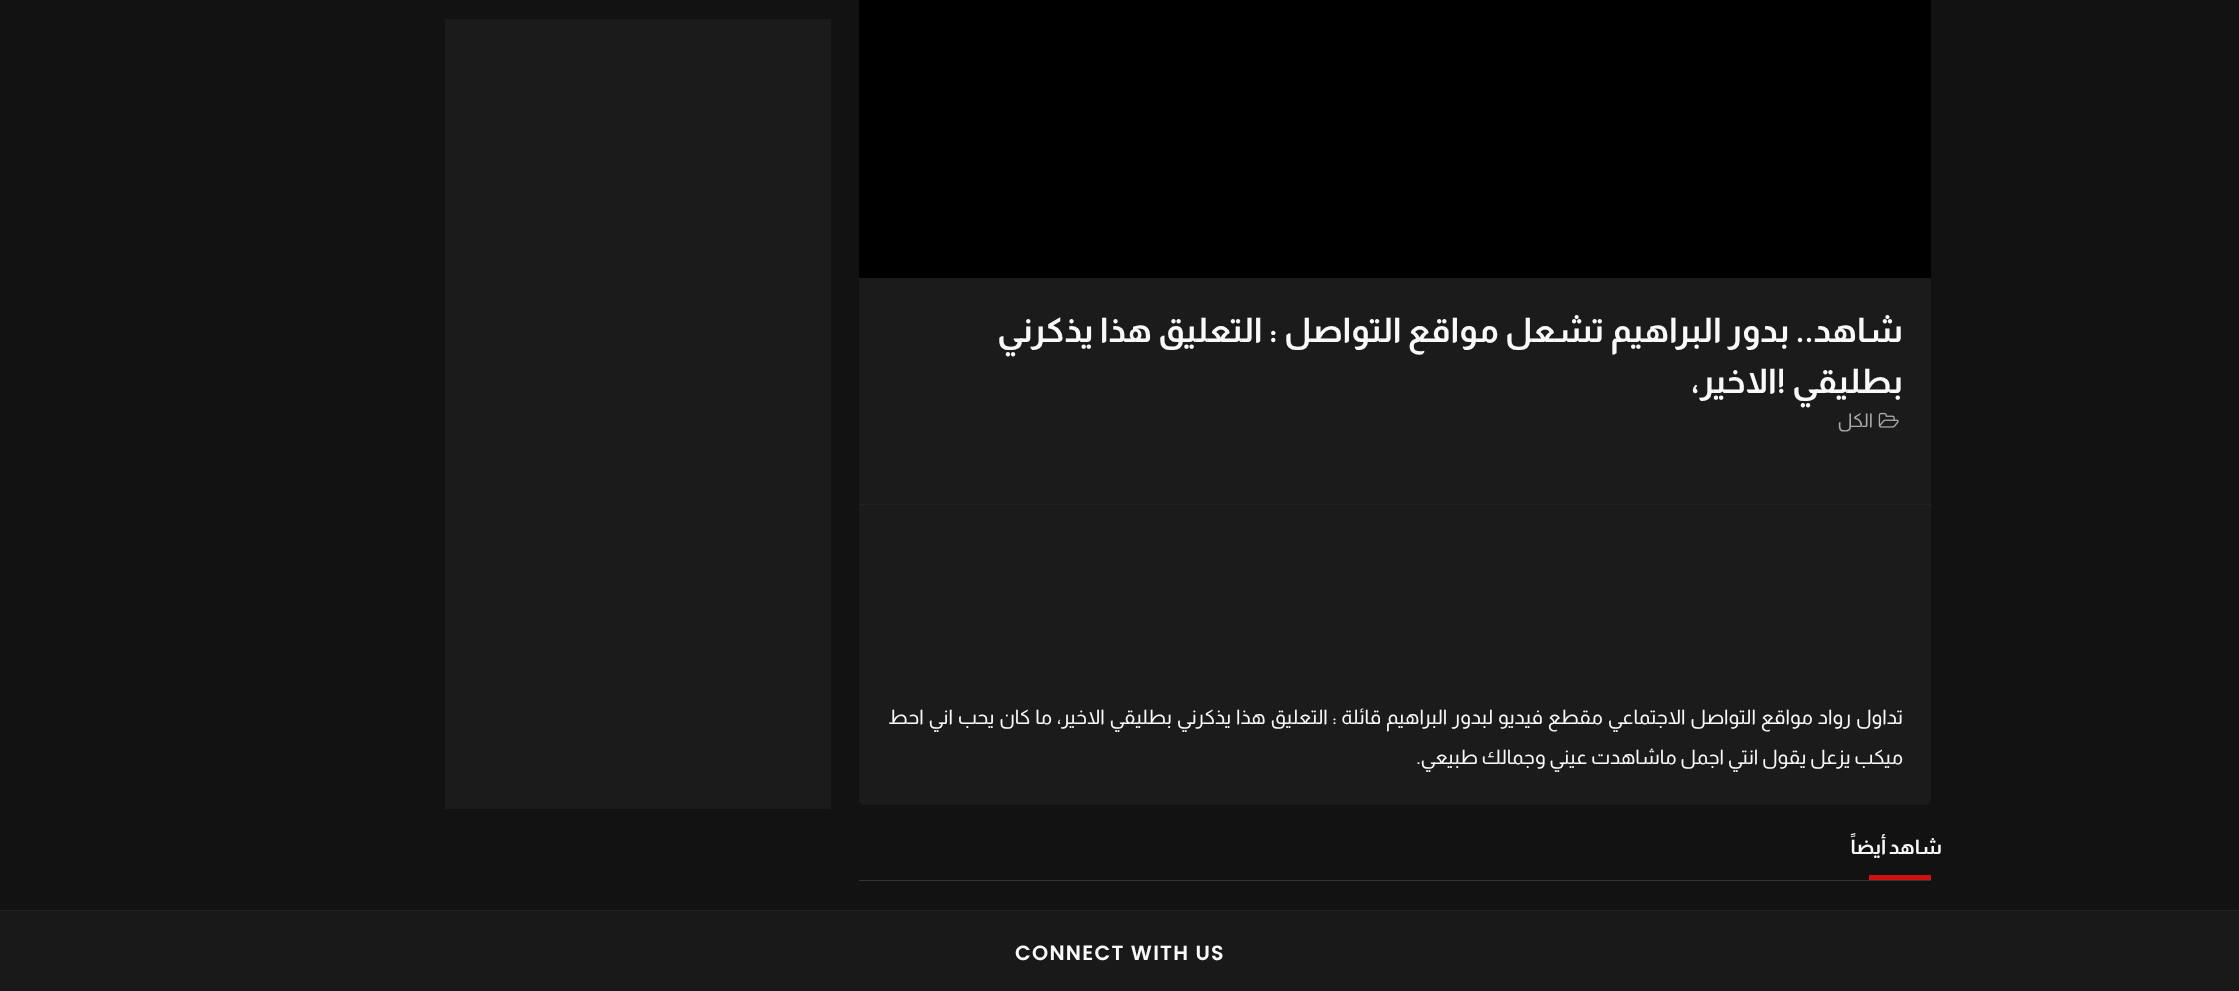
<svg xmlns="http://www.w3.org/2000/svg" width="2239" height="991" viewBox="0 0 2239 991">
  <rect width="100%" height="100%" fill="#121212"/>
  <rect x="859" y="-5" width="1072" height="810" rx="5" fill="#1b1b1b"/>
  <path d="M859 0h1072v278H859z" fill="#000"/>
  <path d="M859 504h1072v1H859z" fill="#222"/>
  <image x="1878" y="412" width="21" height="16" href="img/1.png"/>
  <path d="M859 880h1072v1H859z" fill="#333"/>
  <path d="M1869 875h62v5H1869z" fill="#ce1212"/>
  <path d="M445 19h386v790H445z" fill="#1b1b1b"/>
  <path d="M0 911h2239v80H0z" fill="#191919"/>
  <path d="M0 910h2239v1H0z" fill="#222"/>
  <g font-family="Almarai" font-size="33.75" font-weight="bold" direction="rtl" fill="#f9f9f9">
    <text x="1903" y="342">شاهد.. بدور البراهيم تشعل مواقع التواصل : التعليق هذا يذكرني</text>
    <text x="1903" y="393">بطليقي !الاخير،</text>
  </g>
  <text x="1873" y="427" font-family="Almarai" font-size="19" direction="rtl" fill="#aaa">الكل</text>
  <g font-family="Almarai" font-size="20" direction="rtl" fill="#f9f9f9">
    <text x="1903" y="724" word-spacing="1.1">تداول رواد مواقع التواصل الاجتماعي مقطع فيديو لبدور البراهيم قائلة : التعليق هذا يذكرني بطليقي الاخير، ما كان يحب اني احط</text>
    <text x="1903" y="764">ميكب يزعل يقول انتي اجمل ماشاهدت عيني وجمالك طبيعي.</text>
  </g>
  <text x="1942" y="854" word-spacing="-1" font-family="Almarai" font-size="20" font-weight="bold" letter-spacing="1.25" direction="rtl" fill="#f9f9f9">شاهد أيضاً</text>
  <text x="1015" y="960" font-family="Poppins" font-size="20.6" font-weight="600" letter-spacing="1.25" fill="#f9f9f9">CONNECT WITH US</text>
</svg>
